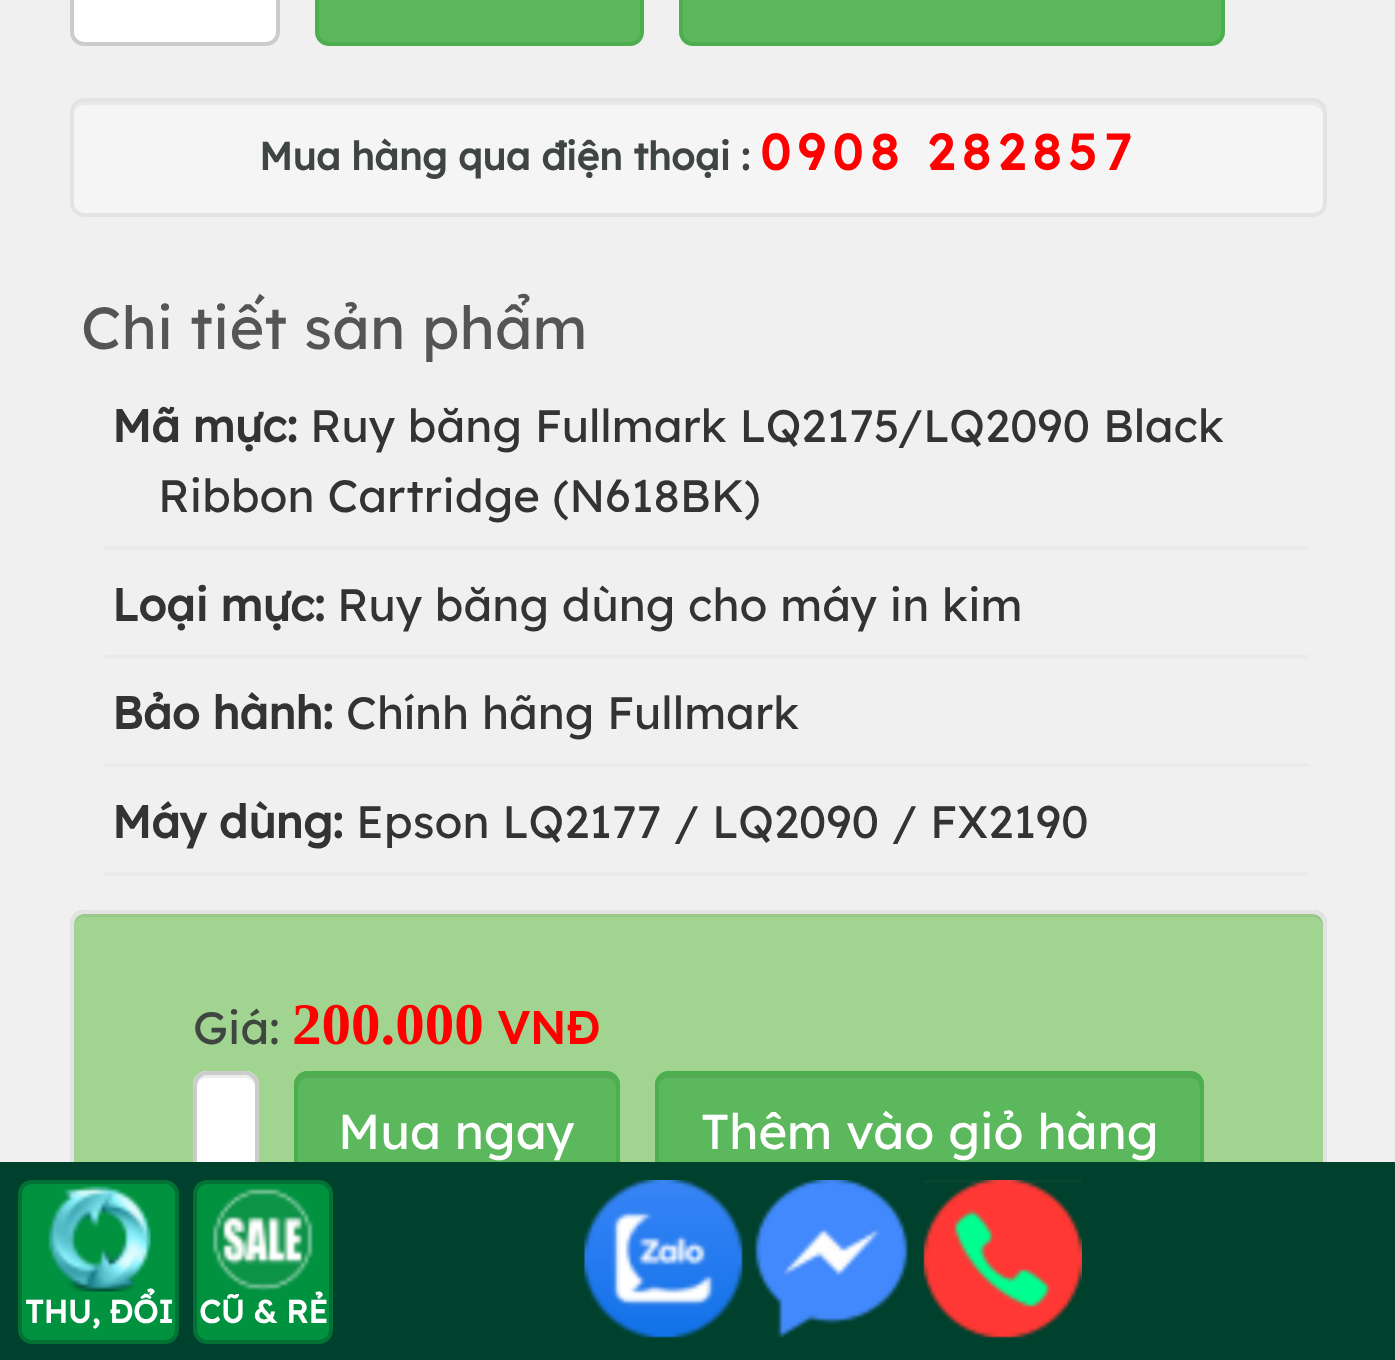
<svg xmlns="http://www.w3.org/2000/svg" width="1395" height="1360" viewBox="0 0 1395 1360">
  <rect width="100%" height="100%" fill="#f0f0f0"/>
  <rect x="72" y="-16" width="206" height="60" rx="12" fill="#fff" stroke="#ccc" stroke-width="4"/>
  <rect x="317" y="-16" width="325" height="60" rx="12" fill="#5cb85c" stroke="#4cae4c" stroke-width="4"/>
  <rect x="681" y="-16" width="542" height="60" rx="12" fill="#5cb85c" stroke="#4cae4c" stroke-width="4"/>
  <rect x="70" y="98" width="1257" height="119" rx="14" fill="#f5f5f5"/>
  <path d="M84 105H1312C1318 105 1323 110 1323 116V113C1323 107 1318 102 1312 102H85C79 102 74 107 74 113V116C74 110 78 105 84 105Z" fill="#e9e9e9"/>
  <rect x="72" y="100" width="1253" height="115" rx="12" fill="none" stroke="#e3e3e3" stroke-width="4"/>
  <path d="M105 546h1204v4H105z" fill="#eaeaea"/>
  <path d="M105 655h1204v4H105z" fill="#eaeaea"/>
  <path d="M105 763h1204v4H105z" fill="#eaeaea"/>
  <path d="M105 872h1204v4H105z" fill="#eaeaea"/>
  <rect x="70" y="910" width="1257" height="403" rx="14" fill="#a1d490"/>
  <path d="M84 917H1312C1318 917 1323 922 1323 928V925C1323 919 1318 914 1312 914H85C79 914 74 919 74 925V928C74 922 78 917 84 917Z" fill="#99c989"/>
  <rect x="72" y="912" width="1253" height="399" rx="12" fill="none" stroke="#e3e3e3" stroke-width="4"/>
  <rect x="193" y="1071" width="66" height="119" rx="14" fill="#fff"/>
  <path d="M206 1078H245C251 1078 256 1083 256 1088C256 1076 249 1075 239 1075H213C203 1075 196 1076 196 1088C196 1083 201 1078 206 1078Z" fill="#ececec"/>
  <rect x="195" y="1073" width="62" height="115" rx="12" fill="none" stroke="#ccc" stroke-width="4"/>
  <rect x="294" y="1071" width="326" height="119" rx="14" fill="#5cb85c"/>
  <path d="M308 1078H606C611 1078 616 1083 616 1088V1086C616 1080 611 1075 605 1075H309C303 1075 298 1080 298 1086V1088C298 1083 302 1078 308 1078Z" fill="#5a5"/>
  <rect x="296" y="1073" width="322" height="115" rx="12" fill="none" stroke="#4cae4c" stroke-width="4"/>
  <rect x="655" y="1071" width="549" height="119" rx="14" fill="#5cb85c"/>
  <path d="M668 1078H1190C1203 1078 1200 1096 1200 1103V1181C1201 1179 1201 1178 1201 1176V1086C1201 1080 1196 1075 1190 1075H669C663 1075 658 1080 658 1086V1088C658 1083 663 1078 668 1078Z" fill="#5a5"/>
  <rect x="657" y="1073" width="545" height="115" rx="12" fill="none" stroke="#4cae4c" stroke-width="4"/>
  <path d="M0 1162h1395v198H0z" fill="#00412d"/>
  <rect x="20" y="1182" width="157" height="160" rx="12" fill="#019240" stroke="#017234" stroke-width="4"/>
  <image x="48" y="1186" width="103" height="106" href="img/1.png"/>
  <rect x="195" y="1182" width="136" height="160" rx="12" fill="#019240" stroke="#017234" stroke-width="4"/>
  <image x="212" y="1188" width="102" height="104" href="img/2.png"/>
  <image x="584" y="1180" width="159" height="158" href="img/3.png"/>
  <image x="754" y="1180" width="155" height="158" href="img/4.png"/>
  <image x="923" y="1180" width="159" height="158" href="img/5.png"/>
  <text x="259" y="170" font-family="Lexend" font-size="38.75" font-weight="bold" fill="#3f4540">Mua hàng qua điện thoại :</text>
  <text x="760" y="170" font-family="Lexend" font-size="50.25" font-weight="bold" letter-spacing="7" fill="#f00">0908 282857</text>
  <text x="81" y="349" font-family="Lexend" font-size="59.5" fill="#555">Chi tiết sản phẩm</text>
  <text x="112" y="442" font-family="Lexend" font-size="45.5" font-weight="bold" fill="#333">Mã mực:</text>
  <g font-family="Lexend" font-size="45.5" fill="#333">
    <text x="310" y="442">Ruy băng Fullmark LQ2175/LQ2090 Black</text>
    <text x="158" y="512">Ribbon Cartridge (N618BK)</text>
  </g>
  <text x="112" y="621" font-family="Lexend" font-size="45.5" font-weight="bold" fill="#333">Loại mực:</text>
  <text x="337" y="621" font-family="Lexend" font-size="45.5" fill="#333">Ruy băng dùng cho máy in kim</text>
  <text x="112" y="729" font-family="Lexend" font-size="45.5" font-weight="bold" fill="#333">Bảo hành:</text>
  <text x="346" y="729" font-family="Lexend" font-size="45.5" fill="#333">Chính hãng Fullmark</text>
  <text x="112" y="838" font-family="Lexend" font-size="45.5" font-weight="bold" fill="#333">Máy dùng:</text>
  <text x="356" y="838" font-family="Lexend" font-size="45.5" fill="#333">Epson LQ2177 / LQ2090 / FX2190</text>
  <text x="193" y="1044" font-family="Lexend" font-size="45.5" fill="#3f4540">Giá:</text>
  <text x="292" y="1044" font-family="Liberation Serif" font-size="59" font-weight="bold" fill="#f00">200.000</text>
  <text x="497" y="1044" font-family="Lexend" font-size="45.5" font-weight="bold" fill="#f00">VNĐ</text>
  <g font-family="Lexend" font-size="49" fill="#fff">
    <text x="338" y="1149">Mua ngay</text>
    <text x="701" y="1149">Thêm vào giỏ hàng</text>
  </g>
  <g font-family="Lexend" font-size="32" font-weight="bold" fill="#fff">
    <text x="25" y="1323">THU, ĐỔI</text>
    <text x="199" y="1323">CŨ &amp; RẺ</text>
  </g>
</svg>
